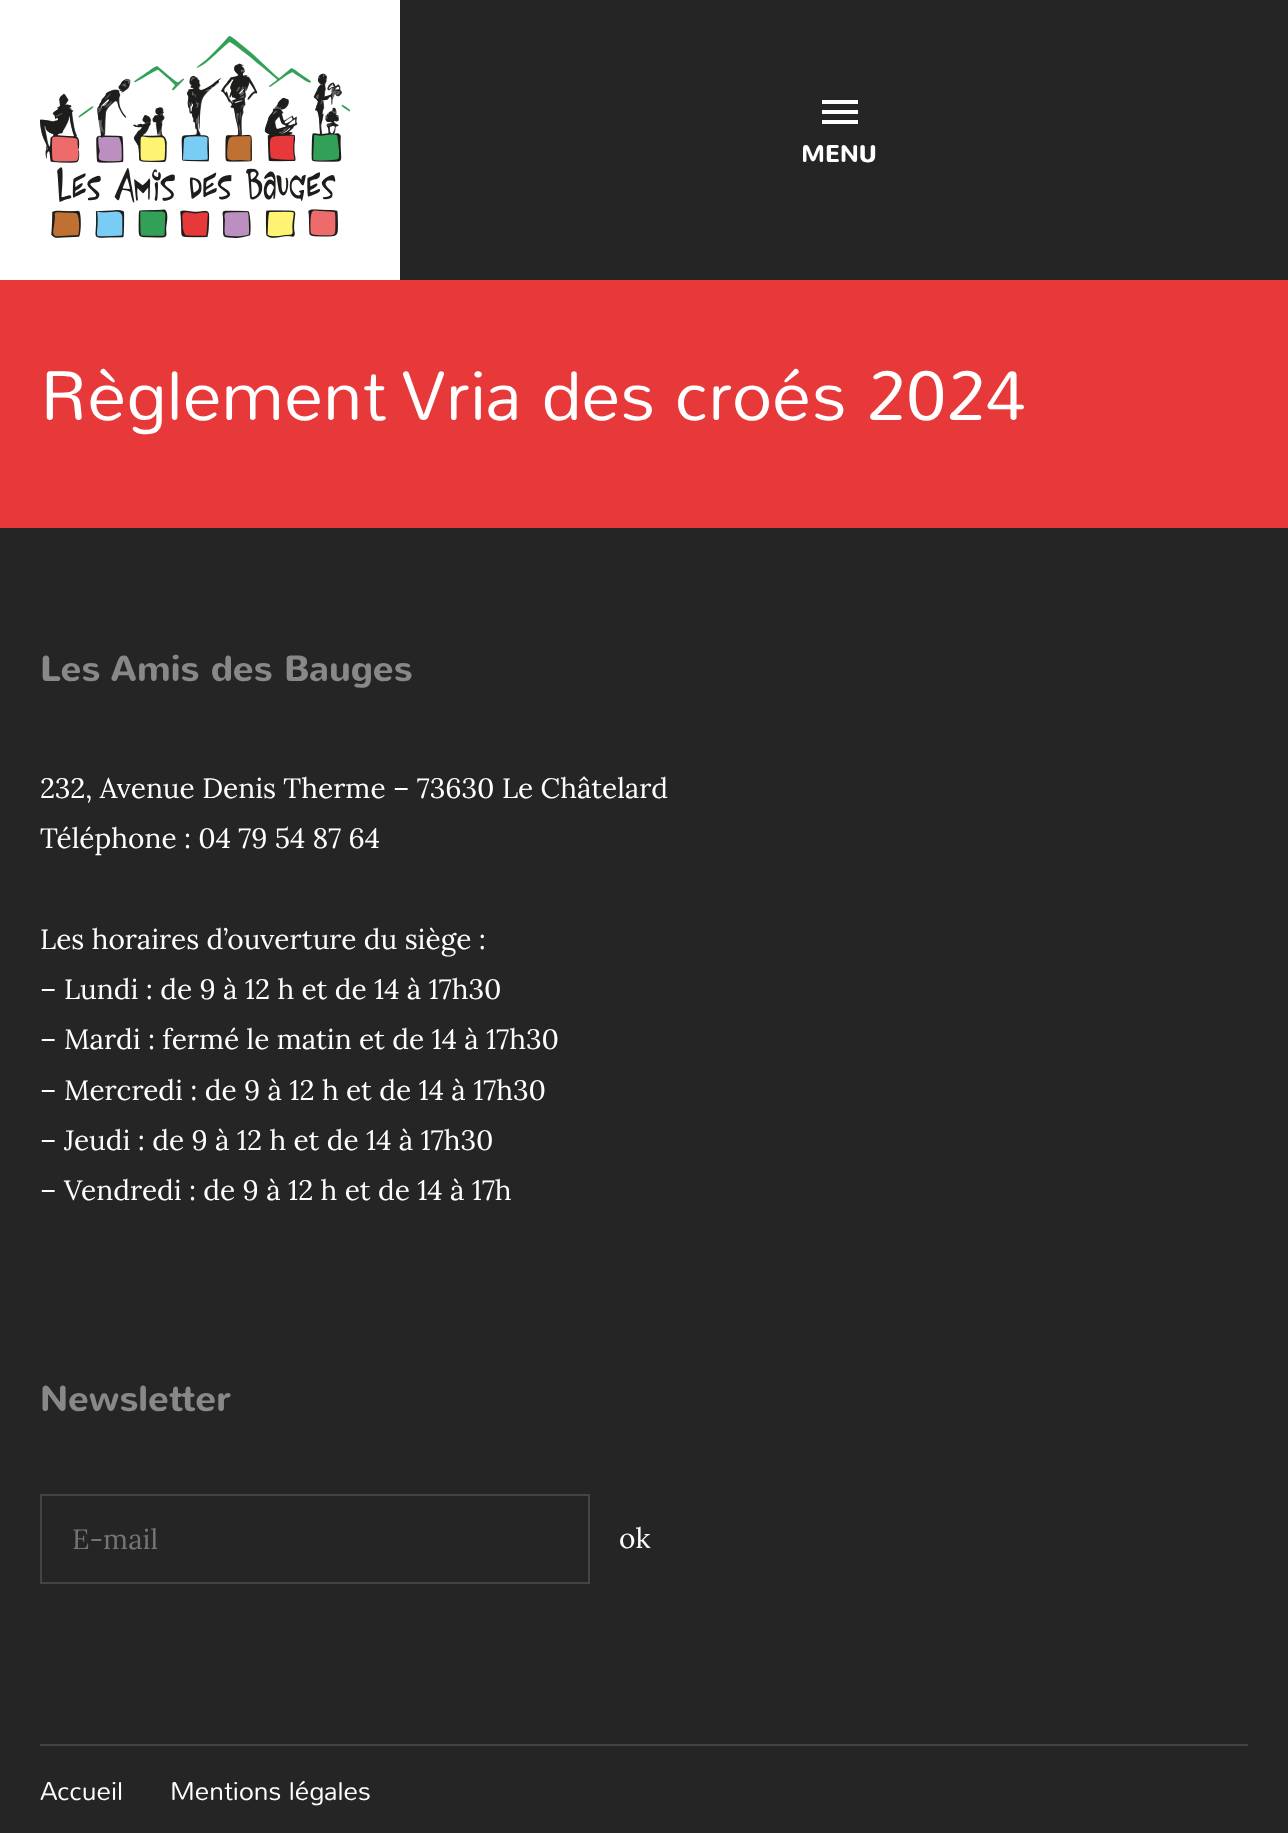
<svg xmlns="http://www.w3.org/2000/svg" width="1288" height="1833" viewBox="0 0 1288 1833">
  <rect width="100%" height="100%" fill="#252525"/>
  <path d="M0 0h400v280H0z" fill="#fff"/>
  <image x="40" y="36" width="310" height="202" href="img/1.png"/>
  <path d="M822 100h36v4H822z" fill="#fff"/>
  <path d="M822 110h36v4H822z" fill="#fff"/>
  <path d="M822 120h36v4H822z" fill="#fff"/>
  <path d="M0 280h1288v248H0z" fill="#e73939"/>
  <path d="M41 1495h548v88H41z" fill="none" stroke="#444" stroke-width="2"/>
  <path d="M40 1744h1208v2H40z" fill="#444"/>
  <text x="801" y="162" font-family="Nunito" font-size="24" font-weight="bold" fill="#fff">MENU</text>
  <text x="40" y="420" font-family="Nunito" font-size="70" font-weight="300" fill="#fff">Règlement Vria des croés 2024</text>
  <text x="40" y="681" font-family="Nunito" font-size="36" font-weight="bold" fill="#888">Les Amis des Bauges</text>
  <g font-family="Lora" font-size="28" fill="#fff">
    <text x="40" y="798">232, Avenue Denis Therme – 73630 Le Châtelard</text>
    <text x="40" y="848">Téléphone : 04 79 54 87 64</text>
    <text x="40" y="949">Les horaires d’ouverture du siège :</text>
    <text x="40" y="999">– Lundi : de 9 à 12 h et de 14 à 17h30</text>
    <text x="40" y="1049">– Mardi : fermé le matin et de 14 à 17h30</text>
    <text x="40" y="1100">– Mercredi : de 9 à 12 h et de 14 à 17h30</text>
    <text x="40" y="1150">– Jeudi : de 9 à 12 h et de 14 à 17h30</text>
    <text x="40" y="1200">– Vendredi : de 9 à 12 h et de 14 à 17h</text>
  </g>
  <text x="40" y="1411" font-family="Nunito" font-size="36" font-weight="bold" fill="#888">Newsletter</text>
  <text x="72" y="1549" font-family="Lora" font-size="28" fill="#757575">E-mail</text>
  <text x="619" y="1548" font-family="Lora" font-size="28" fill="#fff">ok</text>
  <g font-family="Nunito" font-size="26" font-weight="300" fill="#fff">
    <text x="40" y="1800">Accueil</text>
    <text x="170" y="1800">Mentions légales</text>
  </g>
</svg>
